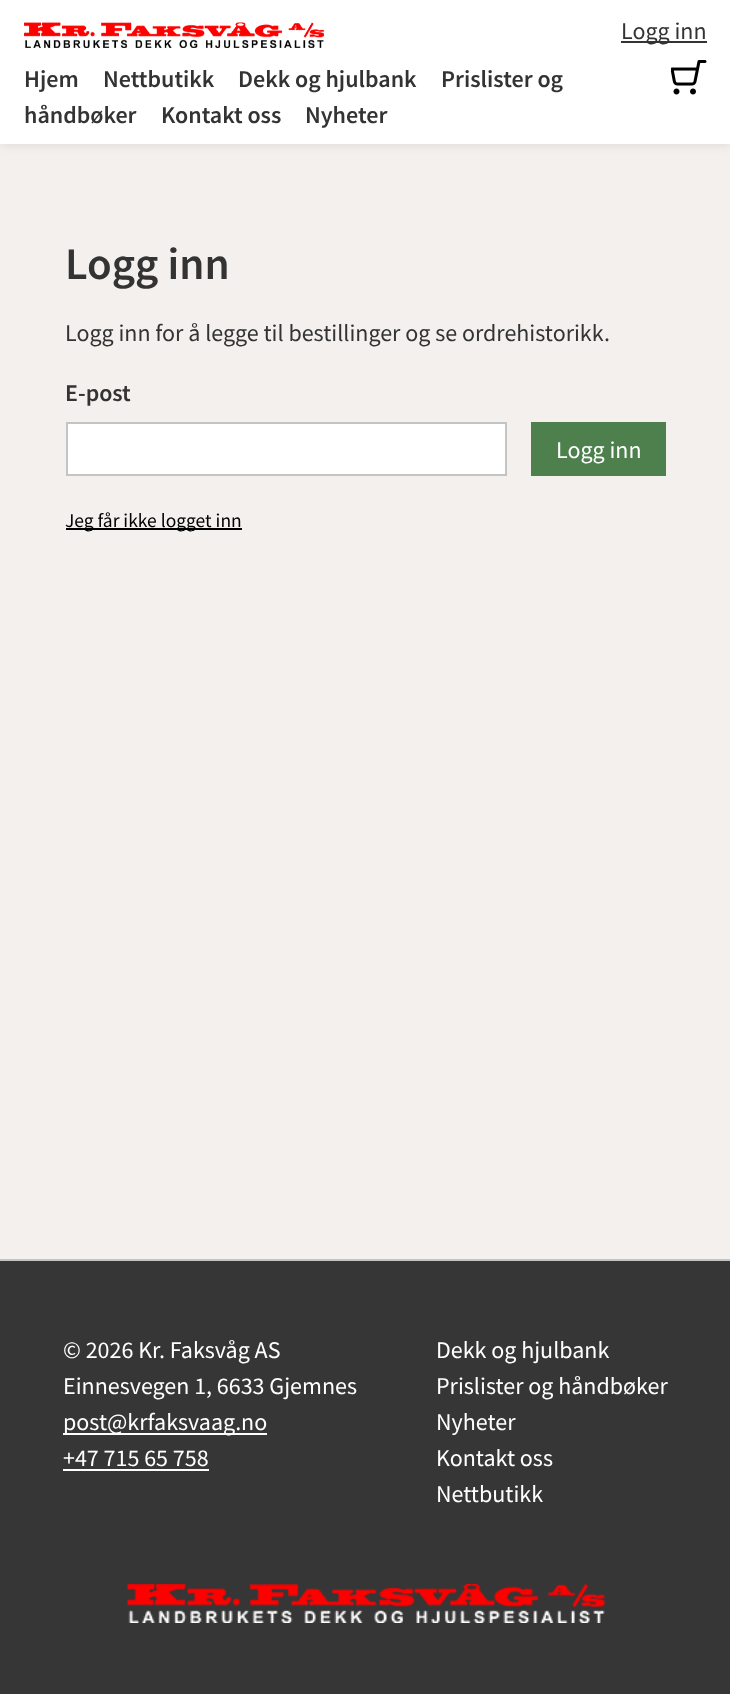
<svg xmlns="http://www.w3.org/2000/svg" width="730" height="1694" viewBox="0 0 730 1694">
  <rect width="100%" height="100%" fill="#f3f0ee"/>
  <path d="M0 0h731v144H0z" fill="#0000001a" filter="blur(6px)"/>
  <path d="M0 0h730v144H0z" fill="#fff"/>
  <image x="24" y="22" width="300" height="26" href="img/1.png"/>
  <path d="M621 41h86v2H621z" fill="#333"/>
  <image x="671" y="60" width="36" height="35" href="img/2.png"/>
  <path d="M67 423h439v52H67z" fill="#fff" stroke="#c4c4c4" stroke-width="2"/>
  <path d="M531 422h135v54H531z" fill="#4d804d"/>
  <path d="M66 528h176v2H66z" fill="#000"/>
  <path d="M0 1261h730v433H0z" fill="#363636"/>
  <path d="M0 1259h730v2H0z" fill="#c4c4c4"/>
  <path d="M63 1433h204v2H63z" fill="#fff"/>
  <path d="M63 1469h146v2H63z" fill="#fff"/>
  <image x="127" y="1584" width="478" height="39" href="img/3.png"/>
  <text x="621" y="39" font-family="Source Sans Pro" font-size="24" fill="#333">Logg inn</text>
  <g font-family="Source Sans Pro" font-size="24" font-weight="600" fill="#333">
    <text x="24" y="87">Hjem</text>
    <text x="103" y="87">Nettbutikk</text>
    <text x="238" y="87">Dekk og hjulbank</text>
    <text x="441" y="87">Prislister og</text>
    <text x="24" y="123">håndbøker</text>
    <text x="161" y="123">Kontakt oss</text>
    <text x="305" y="123">Nyheter</text>
  </g>
  <text x="65" y="279" font-family="Source Sans Pro" font-size="45" font-weight="600" fill="#333">Logg inn</text>
  <text x="65" y="341" font-family="Source Sans Pro" font-size="24" fill="#333">Logg inn for å legge til bestillinger og se ordrehistorikk.</text>
  <text x="65" y="401" font-family="Source Sans Pro" font-size="24" font-weight="600" fill="#333">E-post</text>
  <text x="556" y="458" font-family="Source Sans Pro" font-size="24" fill="#fff">Logg inn</text>
  <text x="65" y="527" font-family="Source Sans Pro" font-size="19.5" fill="#000">Jeg får ikke logget inn</text>
  <g font-family="Source Sans Pro" font-size="24" fill="#fff">
    <text x="63" y="1358">© 2026 Kr. Faksvåg AS</text>
    <text x="63" y="1394">Einnesvegen 1, 6633 Gjemnes</text>
    <text x="63" y="1430">post@krfaksvaag.no</text>
    <text x="63" y="1466">+47 715 65 758</text>
    <text x="436" y="1358">Dekk og hjulbank</text>
    <text x="436" y="1394">Prislister og håndbøker</text>
    <text x="436" y="1430">Nyheter</text>
    <text x="436" y="1466">Kontakt oss</text>
    <text x="436" y="1502">Nettbutikk</text>
  </g>
</svg>
